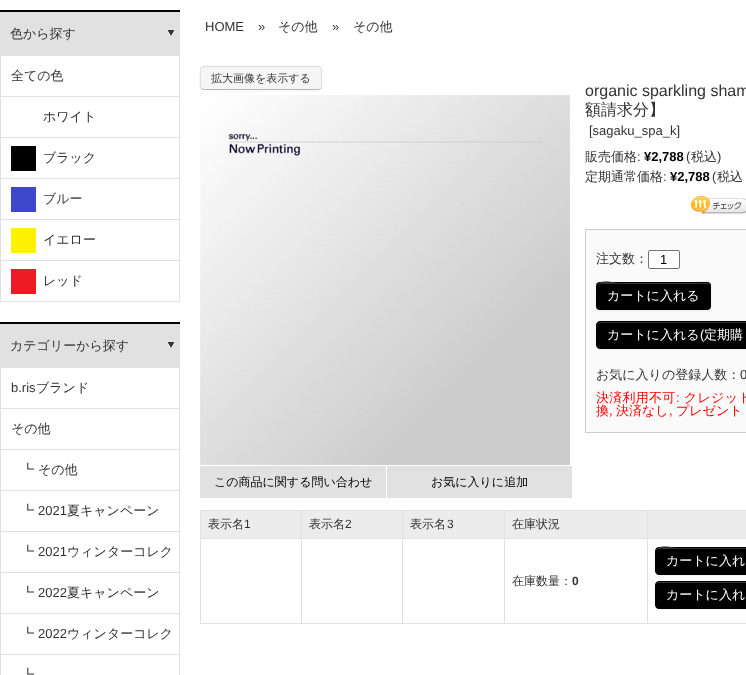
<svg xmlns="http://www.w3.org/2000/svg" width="746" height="675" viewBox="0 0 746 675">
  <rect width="100%" height="100%" fill="#fff"/>
  <path d="M0 12h180v44H0z" fill="#e1e1e1"/>
  <image x="167" y="30" width="8" height="6" href="img/1.png"/>
  <path d="M0 10h180v2H0z" fill="#000"/>
  <path d="M179 55h1v247H179z" fill="#e1e1e1"/>
  <path d="M0 55h1v247H0z" fill="#e1e1e1"/>
  <path d="M1 96h178v1H1z" fill="#e1e1e1"/>
  <path d="M1 137h178v1H1z" fill="#e1e1e1"/>
  <path d="M1 178h178v1H1z" fill="#e1e1e1"/>
  <path d="M11 146h25v25H11z" fill="#000"/>
  <path d="M1 219h178v1H1z" fill="#e1e1e1"/>
  <path d="M11 187h25v25H11z" fill="#3f48cc"/>
  <path d="M1 260h178v1H1z" fill="#e1e1e1"/>
  <path d="M11 228h25v25H11z" fill="#fff200"/>
  <path d="M1 301h178v1H1z" fill="#e1e1e1"/>
  <path d="M11 269h25v25H11z" fill="#ed1c24"/>
  <path d="M0 324h180v44H0z" fill="#e1e1e1"/>
  <image x="167" y="342" width="8" height="6" href="img/1.png"/>
  <path d="M0 322h180v2H0z" fill="#000"/>
  <path d="M179 367h1v308H179z" fill="#e1e1e1"/>
  <path d="M0 367h1v308H0z" fill="#e1e1e1"/>
  <path d="M1 408h178v1H1z" fill="#e1e1e1"/>
  <path d="M1 449h178v1H1z" fill="#e1e1e1"/>
  <path d="M1 490h178v1H1z" fill="#e1e1e1"/>
  <path d="M1 531h178v1H1z" fill="#e1e1e1"/>
  <path d="M1 572h178v1H1z" fill="#e1e1e1"/>
  <path d="M1 613h178v1H1z" fill="#e1e1e1"/>
  <path d="M1 654h178v1H1z" fill="#e1e1e1"/>
  <rect x="200" y="67" width="122" height="24" rx="4" fill="#0000000d" filter="blur(1px)"/>
  <rect x="200" y="66" width="122" height="24" rx="4" fill="#f5f5f5"/>
  <path d="M320.5 88.5C320 89 319 89.5 318 89.5H204C203 89.5 202 89 201.5 88.5" fill="none" stroke="#b8b8b8"/>
  <path d="M201.5 88.5C199.5 86.5 200.5 80.5 200.5 78C200.5 75 198.5 66.5 204 66.5H318C323.5 66.5 321.5 75 321.5 78C321.5 80.5 322.5 86.5 320.5 88.5" fill="none" stroke="#0000001a"/>
  <image x="200" y="95" width="370" height="370" href="img/2.png"/>
  <path d="M200 466h186v32H200z" fill="#e1e1e1"/>
  <path d="M387 466h185v32H387z" fill="#e1e1e1"/>
  <image x="691" y="196" width="55" height="18" href="img/3.png"/>
  <path d="M585.5 229.5h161v203H585.5z" fill="#fafafa" stroke="#ccc"/>
  <rect x="648.5" y="250.5" width="31" height="18" rx="1.5" fill="#fff" stroke="#767676"/>
  <rect x="596" y="283" width="115" height="28" rx="4" fill="#0000000d" filter="blur(1px)"/>
  <rect x="596" y="282" width="115" height="28" rx="4" fill="#000"/>
  <path d="M600 284H707C709 284 710 285 710 287C710 285 709 283 707 283H618C616 283 597 278 597 287C597 285 598 284 600 284Z" fill="#333"/>
  <path d="M709.5 308.5L707.5 309.5H618H600L597.5 308.5" fill="none" stroke="#00000040"/>
  <path d="M597.5 308.5C595.5 306.5 596.5 302 596.5 299.5C596.5 278 594 282.5 618 282.5H689C713 282.5 710.5 278 710.5 299.5C710.5 302 711.5 306.5 709.5 308.5" fill="none" stroke="#0000001a"/>
  <rect x="596" y="322" width="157" height="28" rx="4" fill="#0000000d" filter="blur(1px)"/>
  <path d="M600 321H746V349H600C598 349 596 347 596 345V325C596 323 598 321 600 321Z" fill="#000"/>
  <path d="M600 323H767C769 323 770 324 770 326V325C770 323 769 322 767 322H600C598 322 597 323 597 325V326C597 324 598 323 600 323Z" fill="#333"/>
  <path d="M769.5 347.5L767 348.5H599.5L597.5 347.5" fill="none" stroke="#00000040"/>
  <path d="M597.5 347.5C595.5 345 596.5 337.5 596.5 335V328.5C596.5 325.5 596 321.5 600 321.5H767C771 321.5 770.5 325.5 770.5 328.5V335C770.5 337.5 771.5 345 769.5 347.5" fill="none" stroke="#0000001a"/>
  <path d="M200 510h546v1H200z" fill="#e1e1e1"/>
  <path d="M201 511h100v27H201z" fill="#ececec"/>
  <path d="M647 623h99v1H647z" fill="#e1e1e1"/>
  <path d="M647 538h1v86H647z" fill="#e1e1e1"/>
  <path d="M647 538h99v1H647z" fill="#e1e1e1"/>
  <path d="M647 510h1v29H647z" fill="#e1e1e1"/>
  <path d="M504 623h144v1H504z" fill="#e1e1e1"/>
  <path d="M504 538h1v86H504z" fill="#e1e1e1"/>
  <path d="M504 538h144v1H504z" fill="#e1e1e1"/>
  <path d="M504 510h1v29H504z" fill="#e1e1e1"/>
  <path d="M402 623h103v1H402z" fill="#e1e1e1"/>
  <path d="M402 538h1v86H402z" fill="#e1e1e1"/>
  <path d="M402 538h103v1H402z" fill="#e1e1e1"/>
  <path d="M402 510h1v29H402z" fill="#e1e1e1"/>
  <path d="M301 623h102v1H301z" fill="#e1e1e1"/>
  <path d="M301 538h1v86H301z" fill="#e1e1e1"/>
  <path d="M301 538h102v1H301z" fill="#e1e1e1"/>
  <path d="M301 510h1v29H301z" fill="#e1e1e1"/>
  <path d="M200 623h102v1H200z" fill="#e1e1e1"/>
  <path d="M200 538h1v86H200z" fill="#e1e1e1"/>
  <path d="M200 538h102v1H200z" fill="#e1e1e1"/>
  <path d="M200 510h1v29H200z" fill="#e1e1e1"/>
  <path d="M302 511h100v27H302z" fill="#ececec"/>
  <path d="M403 511h101v27H403z" fill="#ececec"/>
  <path d="M505 511h142v27H505z" fill="#ececec"/>
  <path d="M648 511h98v27H648z" fill="#ececec"/>
  <rect x="655" y="548" width="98" height="28" rx="4" fill="#0000000d" filter="blur(1px)"/>
  <path d="M659 547H746V575H659C657 575 655 573 655 571V551C655 549 657 547 659 547Z" fill="#000"/>
  <path d="M659 549H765C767 549 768 550 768 552C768 550 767 548 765 548H677C675 548 656 543 656 552C656 550 657 549 659 549Z" fill="#333"/>
  <path d="M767.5 573.5L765.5 574.5H676.5H659L656.5 573.5" fill="none" stroke="#00000040"/>
  <path d="M656.5 573.5C654.5 571.5 655.5 567 655.5 564.5C655.5 543 652.5 547.5 676.5 547.5H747.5C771.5 547.5 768.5 543 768.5 564.5C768.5 567 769.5 571.5 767.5 573.5" fill="none" stroke="#0000001a"/>
  <rect x="655" y="582" width="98" height="28" rx="4" fill="#0000000d" filter="blur(1px)"/>
  <path d="M659 581H746V609H659C657 609 655 607 655 605V585C655 583 657 581 659 581Z" fill="#000"/>
  <path d="M659 583H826C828 583 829 584 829 586V585C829 583 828 582 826 582H659C657 582 656 583 656 585V586C656 584 657 583 659 583Z" fill="#333"/>
  <path d="M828.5 607.5L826 608.5H658.5L656.5 607.5" fill="none" stroke="#00000040"/>
  <path d="M656.5 607.5C654.5 605 655.5 597.5 655.5 595V588.5C655.5 585.5 655 581.5 659 581.5H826C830 581.5 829.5 585.5 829.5 588.5V595C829.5 597.5 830.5 605 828.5 607.5" fill="none" stroke="#0000001a"/>
  <g font-family="WenQuanYi Zen Hei" font-size="13" font-weight="500" fill="#333">
    <text x="10" y="38">色から探す</text>
    <text x="11" y="80">全ての色</text>
    <text x="43" y="121">ホワイト</text>
    <text x="43" y="162">ブラック</text>
    <text x="43" y="203">ブルー</text>
    <text x="43" y="244">イエロー</text>
    <text x="43" y="285">レッド</text>
    <text x="10" y="350">カテゴリーから探す</text>
  </g>
  <text x="11" y="392" font-family="Liberation Sans" font-size="13" fill="#333">b.ris</text>
  <g font-family="WenQuanYi Zen Hei" font-size="13" font-weight="500" fill="#333">
    <text x="36" y="392">ブランド</text>
    <text x="11" y="433">その他</text>
    <text x="21" y="474">┗ その他</text>
    <text x="21" y="515">┗</text>
  </g>
  <text x="38" y="515" font-family="Liberation Sans" font-size="13" fill="#333">2021</text>
  <g font-family="WenQuanYi Zen Hei" font-size="13" font-weight="500" fill="#333">
    <text x="67" y="515">夏キャンペーン</text>
    <text x="21" y="556">┗</text>
  </g>
  <text x="38" y="556" font-family="Liberation Sans" font-size="13" fill="#333">2021</text>
  <g font-family="WenQuanYi Zen Hei" font-size="13" font-weight="500" fill="#333">
    <text x="67" y="556">ウィンターコレク</text>
    <text x="21" y="597">┗</text>
  </g>
  <text x="38" y="597" font-family="Liberation Sans" font-size="13" fill="#333">2022</text>
  <g font-family="WenQuanYi Zen Hei" font-size="13" font-weight="500" fill="#333">
    <text x="67" y="597">夏キャンペーン</text>
    <text x="21" y="638">┗</text>
  </g>
  <text x="38" y="638" font-family="Liberation Sans" font-size="13" fill="#333">2022</text>
  <g font-family="WenQuanYi Zen Hei" font-size="13" font-weight="500" fill="#333">
    <text x="67" y="638">ウィンターコレク</text>
    <text x="21" y="679">┗</text>
  </g>
  <g font-family="Liberation Sans" font-size="13" fill="#333">
    <text x="205" y="31">HOME</text>
    <text x="258" y="31">»</text>
  </g>
  <text x="278" y="31" font-family="WenQuanYi Zen Hei" font-size="13" font-weight="500" fill="#333">その他</text>
  <text x="332" y="31" font-family="Liberation Sans" font-size="13" fill="#333">»</text>
  <text x="353" y="31" font-family="WenQuanYi Zen Hei" font-size="13" font-weight="500" fill="#333">その他</text>
  <text x="211" y="82" font-family="WenQuanYi Zen Hei" font-size="11" font-weight="500" fill="#333">拡大画像を表示する</text>
  <g font-family="WenQuanYi Zen Hei" font-size="12" font-weight="500" fill="#000">
    <text x="214" y="486">この商品に関する問い合わせ</text>
    <text x="431" y="486">お気に入りに追加</text>
  </g>
  <text x="585" y="96" font-family="Liberation Sans" font-size="16" fill="#333">organic sparkling sham</text>
  <text x="585" y="115" font-family="WenQuanYi Zen Hei" font-size="16" font-weight="500" fill="#333">額請求分】</text>
  <text x="589" y="135" font-family="Liberation Sans" font-size="13" fill="#333">[sagaku_spa_k]</text>
  <text x="585" y="161" font-family="WenQuanYi Zen Hei" font-size="13" font-weight="500" fill="#333">販売価格</text>
  <text x="637" y="161" font-family="Liberation Sans" font-size="13" fill="#333">:</text>
  <text x="644" y="161" font-family="Liberation Sans" font-size="13" font-weight="bold" fill="#000">¥2,788</text>
  <text x="686" y="161" font-family="Liberation Sans" font-size="13" fill="#333">(</text>
  <text x="691" y="161" font-family="WenQuanYi Zen Hei" font-size="13" font-weight="500" fill="#333">税込</text>
  <text x="717" y="161" font-family="Liberation Sans" font-size="13" fill="#333">)</text>
  <text x="585" y="181" font-family="WenQuanYi Zen Hei" font-size="13" font-weight="500" fill="#333">定期通常価格</text>
  <text x="663" y="181" font-family="Liberation Sans" font-size="13" fill="#333">:</text>
  <text x="670" y="181" font-family="Liberation Sans" font-size="13" font-weight="bold" fill="#000">¥2,788</text>
  <text x="712" y="181" font-family="Liberation Sans" font-size="13" fill="#333">(</text>
  <g font-family="WenQuanYi Zen Hei" font-size="13" font-weight="500" fill="#333">
    <text x="717" y="181">税込</text>
    <text x="596" y="263">注文数：</text>
  </g>
  <text x="660" y="264" font-family="Liberation Sans" font-size="13" fill="#000">1</text>
  <g font-family="WenQuanYi Zen Hei" font-size="13" font-weight="500" fill="#fff">
    <text x="607" y="300">カートに入れる</text>
    <text x="607" y="339">カートに入れる</text>
  </g>
  <text x="700" y="339" font-family="Liberation Sans" font-size="13" fill="#fff">(</text>
  <text x="704" y="339" font-family="WenQuanYi Zen Hei" font-size="13" font-weight="500" fill="#fff">定期購</text>
  <text x="596" y="379" font-family="WenQuanYi Zen Hei" font-size="13" font-weight="500" fill="#333">お気に入りの登録人数：</text>
  <text x="740" y="379" font-family="Liberation Sans" font-size="13" fill="#333">0</text>
  <text x="596" y="402" font-family="WenQuanYi Zen Hei" font-size="13" font-weight="500" letter-spacing="0.25" fill="#f00">決済利用不可</text>
  <text x="676" y="402" font-family="Liberation Sans" font-size="13" letter-spacing="0.25" fill="#f00">:</text>
  <text x="684" y="402" font-family="WenQuanYi Zen Hei" font-size="13" font-weight="500" letter-spacing="0.25" fill="#f00">クレジット</text>
  <text x="596" y="415" font-family="WenQuanYi Zen Hei" font-size="13" font-weight="500" fill="#f00">換</text>
  <text x="609" y="415" font-family="Liberation Sans" font-size="13" fill="#f00">,</text>
  <text x="616" y="415" font-family="WenQuanYi Zen Hei" font-size="13" font-weight="500" fill="#f00">決済なし</text>
  <text x="669" y="415" font-family="Liberation Sans" font-size="13" fill="#f00">,</text>
  <text x="676" y="415" font-family="WenQuanYi Zen Hei" font-size="13" font-weight="500" fill="#f00">プレゼント</text>
  <text x="208" y="528" font-family="WenQuanYi Zen Hei" font-size="12" font-weight="500" fill="#333">表示名</text>
  <text x="244" y="528" font-family="Liberation Sans" font-size="12" fill="#333">1</text>
  <text x="309" y="528" font-family="WenQuanYi Zen Hei" font-size="12" font-weight="500" fill="#333">表示名</text>
  <text x="345" y="528" font-family="Liberation Sans" font-size="12" fill="#333">2</text>
  <text x="410" y="528" font-family="WenQuanYi Zen Hei" font-size="12" font-weight="500" fill="#333">表示名</text>
  <text x="447" y="528" font-family="Liberation Sans" font-size="12" fill="#333">3</text>
  <g font-family="WenQuanYi Zen Hei" font-size="12" font-weight="500" fill="#333">
    <text x="512" y="528">在庫状況</text>
    <text x="512" y="585">在庫数量：</text>
  </g>
  <text x="572" y="585" font-family="Liberation Sans" font-size="12" font-weight="bold" fill="#333">0</text>
  <g font-family="WenQuanYi Zen Hei" font-size="13" font-weight="500" fill="#fff">
    <text x="666" y="565">カートに入れ</text>
    <text x="666" y="599">カートに入れ</text>
  </g>
</svg>
